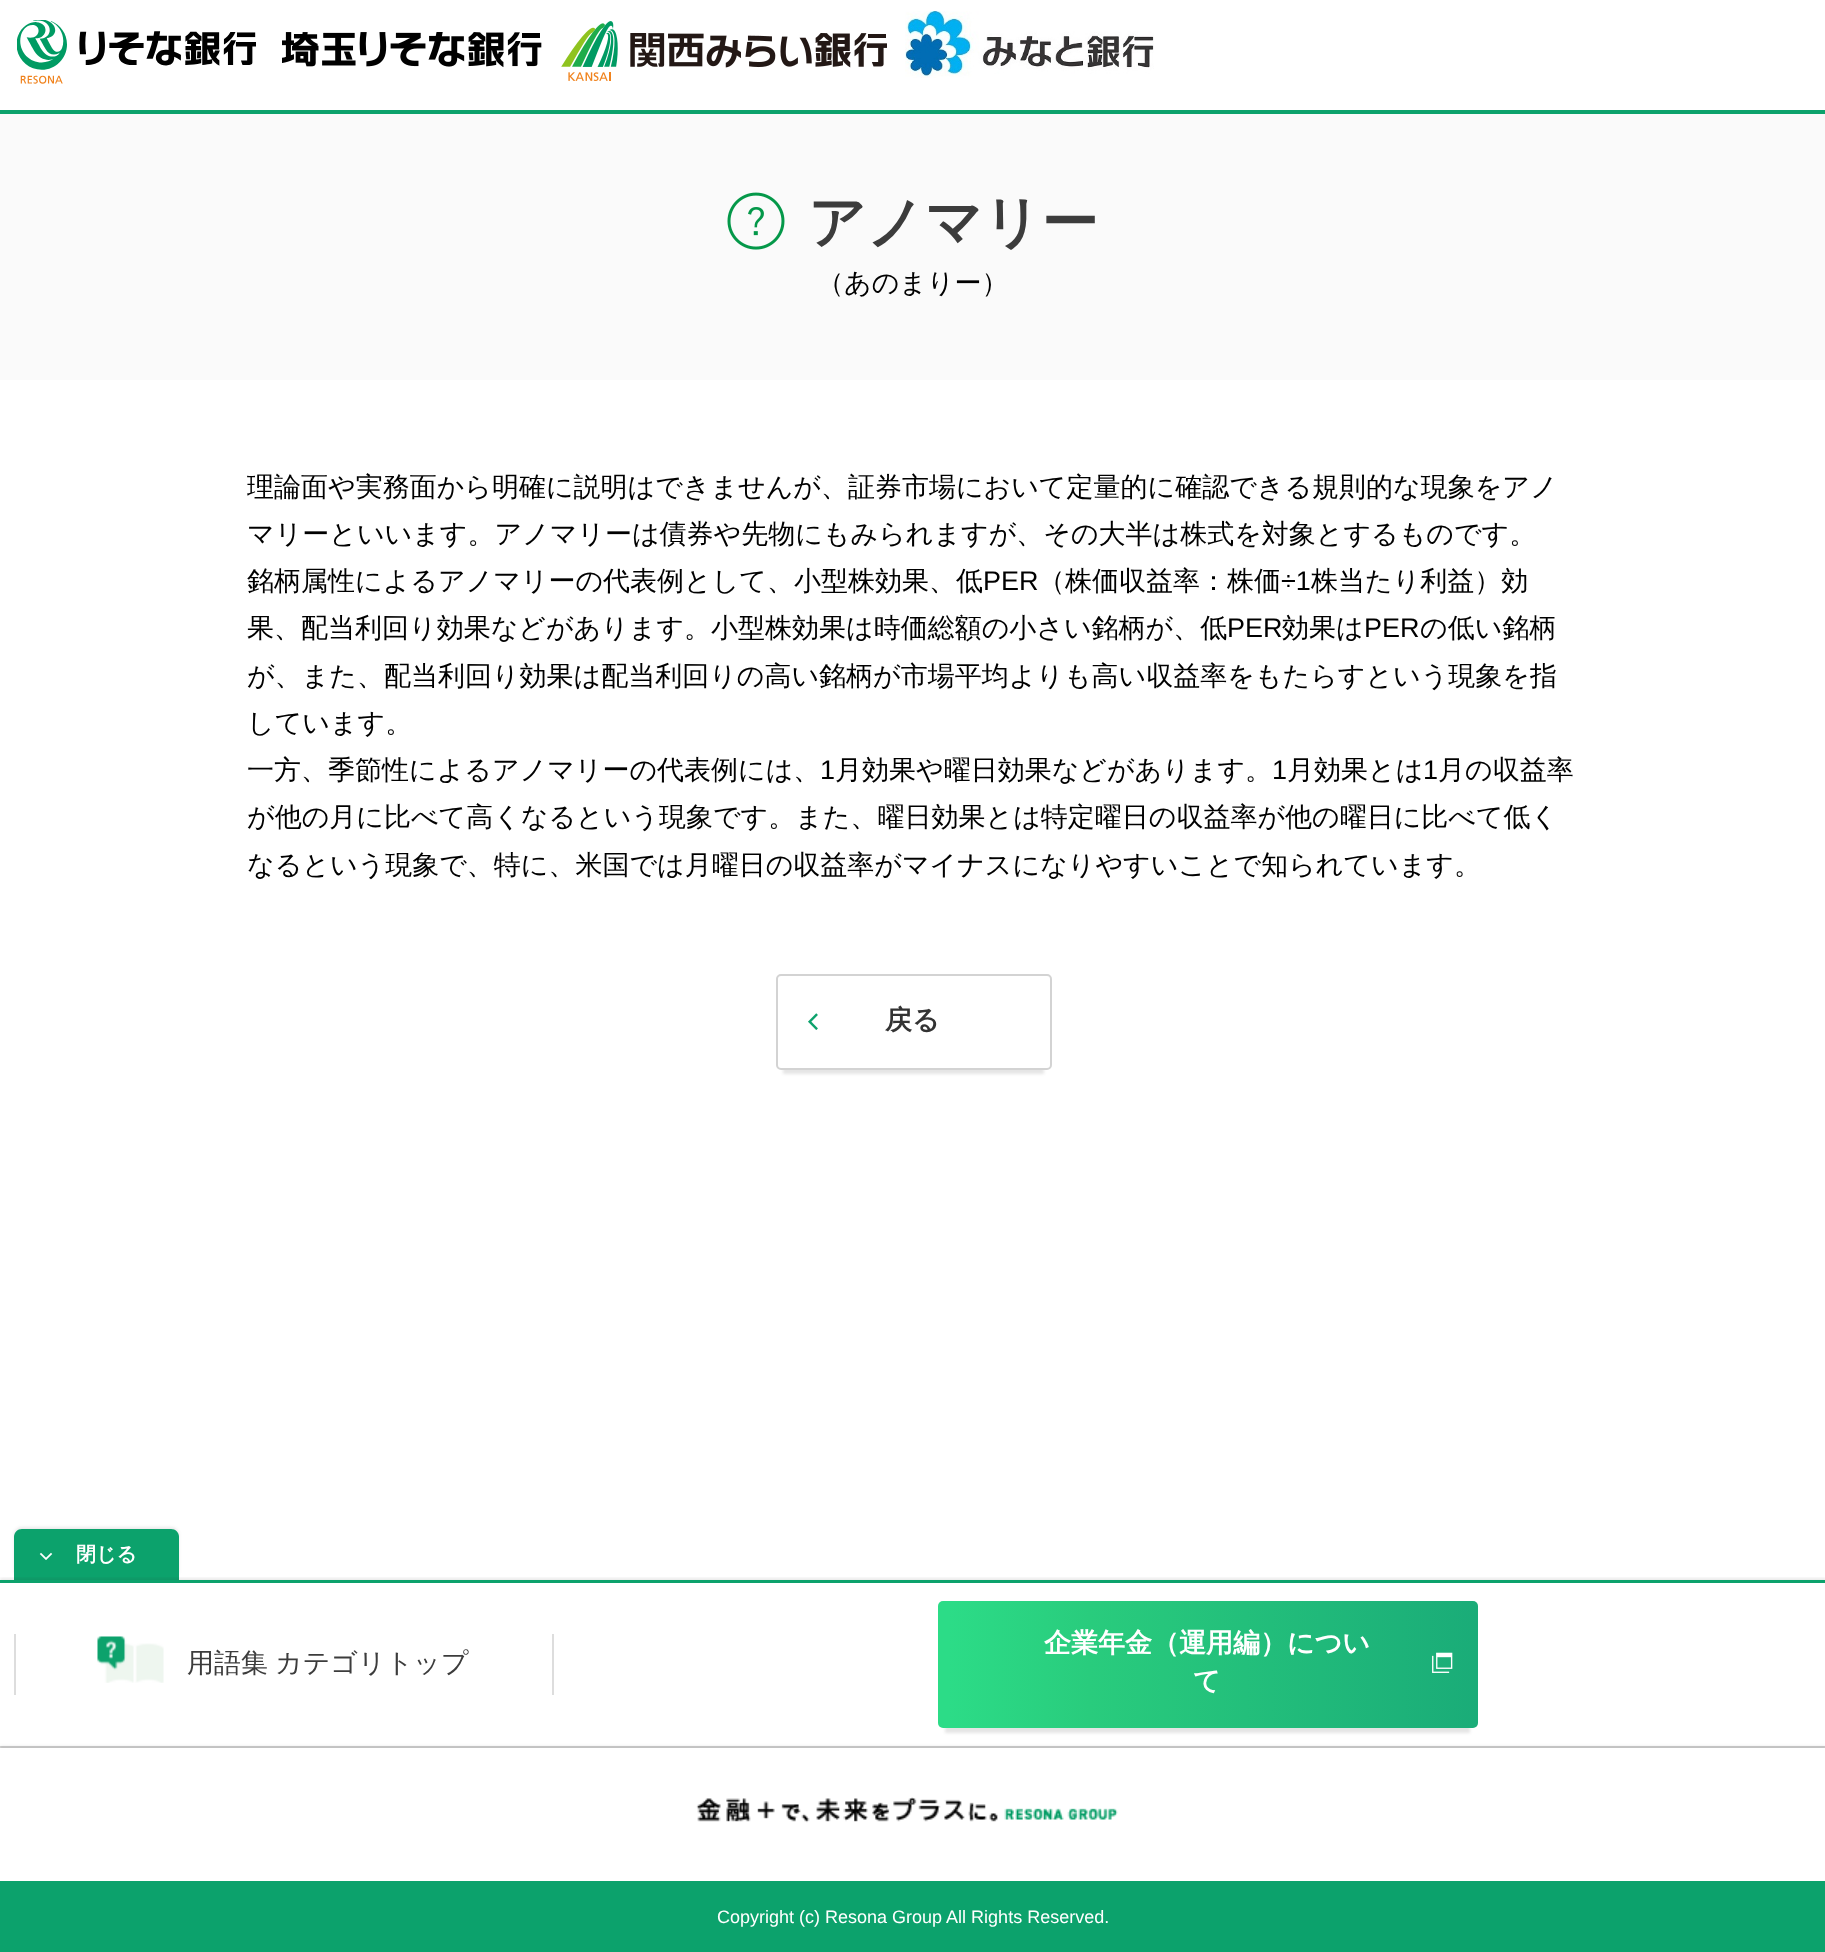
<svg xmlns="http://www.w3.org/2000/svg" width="1825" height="1952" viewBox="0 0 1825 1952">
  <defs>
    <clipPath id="clip1"><path d="M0 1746h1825v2H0z"/></clipPath>
    <clipPath id="clip2"><path d="M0 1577h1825v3H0z"/></clipPath>
    <linearGradient id="g1" gradientUnits="userSpaceOnUse" x1="398" y1="1664" x2="1478" y2="1664"><stop offset="0" stop-color="#2cdc87"/><stop offset="0.51" stop-color="#2cdc87"/><stop offset="0.64" stop-color="#29cc7d"/><stop offset="1" stop-color="#1aac78"/></linearGradient>
  </defs>
  <rect width="100%" height="100%" fill="#fff"/>
  <path d="M0 110h1825v4H0z" fill="#0ca26c"/>
  <image x="17" y="20" width="239" height="64" href="img/1.png"/>
  <image x="282" y="32" width="260" height="36" href="img/2.png"/>
  <image x="561" y="21" width="326" height="60" href="img/3.png"/>
  <image x="905" y="11" width="249" height="67" href="img/4.png"/>
  <path d="M0 114h1825v266H0z" fill="#fafafa"/>
  <image x="727" y="192" width="58" height="58" href="img/5.png"/>
  <path d="M783 993h261v81H783z" fill="#0000001a" filter="blur(1.5px)"/>
  <rect x="777" y="975" width="274" height="94" rx="4" fill="#fff" stroke="#d3d3d3" stroke-width="2"/>
  <image x="808" y="1013" width="10" height="17" href="img/6.png"/>
  <path d="M0 1746h1825v2H0z" fill="#ddd"/>
  <rect x="14" y="1527" width="165" height="51" rx="8" fill="#3232321a" filter="blur(1.5px)"/>
  <path d="M22 1529H171C175.5 1529 179 1532.5 179 1537V1580H14V1537C14 1532.5 17.5 1529 22 1529Z" fill="#0ca26c"/>
  <image x="39" y="1552" width="14" height="8" href="img/7.png"/>
  <g clip-path="url(#clip1)">
    <path d="M0 1581h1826v167H0z" fill="#3232321a" filter="blur(1.5px)"/>
  </g>
  <g clip-path="url(#clip2)">
    <path d="M0 1578h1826v167H0z" fill="#3232321a" filter="blur(1.5px)"/>
  </g>
  <path d="M0 1580h1825v3H0z" fill="#0ca26c"/>
  <path d="M552 1634h2v61H552z" fill="#ddd"/>
  <path d="M14 1634h2v61H14z" fill="#ddd"/>
  <image x="97" y="1636" width="67" height="47" href="img/8.png"/>
  <path d="M945 1620h525v113H945z" fill="#0000001a" filter="blur(1.5px)"/>
  <rect x="938" y="1601" width="540" height="127" rx="5" fill="url(#g1)"/>
  <image x="1432" y="1652" width="21" height="21" href="img/9.png"/>
  <path d="M0 1746h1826v206H0z" fill="#3232321a" filter="blur(1.5px)"/>
  <path d="M0 1748h1825v133H0z" fill="#fff"/>
  <path d="M0 1881h1825v71H0z" fill="#0ca26c"/>
  <image x="696" y="1797" width="422" height="26" href="img/10.png"/>
  <text x="808" y="242" font-family="WenQuanYi Zen Hei" font-size="57" font-weight="bold" fill="#3c3c3c">アノマリー</text>
  <g font-family="WenQuanYi Zen Hei" font-size="27" font-weight="500" fill="#000">
    <text x="817" y="292">（あのまりー）</text>
    <text x="247" y="496">理論面や実務面から明確に説明はできませんが、証券市場において定量的に確認できる規則的な現象をアノ</text>
    <text x="247" y="543">マリーといいます。アノマリーは債券や先物にもみられますが、その大半は株式を対象とするものです。</text>
    <text x="247" y="590">銘柄属性によるアノマリーの代表例として、小型株効果、低</text>
  </g>
  <text x="983" y="590" font-family="Liberation Sans" font-size="27" fill="#000">PER</text>
  <text x="1038" y="590" font-family="WenQuanYi Zen Hei" font-size="27" font-weight="500" fill="#000">（株価収益率：株価</text>
  <text x="1281" y="590" font-family="Liberation Sans" font-size="27" fill="#000">÷1</text>
  <g font-family="WenQuanYi Zen Hei" font-size="27" font-weight="500" fill="#000">
    <text x="1311" y="590">株当たり利益）効</text>
    <text x="247" y="637">果、配当利回り効果などがあります。小型株効果は時価総額の小さい銘柄が、低</text>
  </g>
  <text x="1227" y="637" font-family="Liberation Sans" font-size="27" fill="#000">PER</text>
  <text x="1282" y="637" font-family="WenQuanYi Zen Hei" font-size="27" font-weight="500" fill="#000">効果は</text>
  <text x="1364" y="637" font-family="Liberation Sans" font-size="27" fill="#000">PER</text>
  <g font-family="WenQuanYi Zen Hei" font-size="27" font-weight="500" fill="#000">
    <text x="1420" y="637">の低い銘柄</text>
    <text x="247" y="685">が、また、配当利回り効果は配当利回りの高い銘柄が市場平均よりも高い収益率をもたらすという現象を指</text>
    <text x="247" y="732">しています。</text>
    <text x="247" y="779">一方、季節性によるアノマリーの代表例には、</text>
  </g>
  <text x="820" y="779" font-family="Liberation Sans" font-size="27" fill="#000">1</text>
  <text x="835" y="779" font-family="WenQuanYi Zen Hei" font-size="27" font-weight="500" fill="#000">月効果や曜日効果などがあります。</text>
  <text x="1272" y="779" font-family="Liberation Sans" font-size="27" fill="#000">1</text>
  <text x="1287" y="779" font-family="WenQuanYi Zen Hei" font-size="27" font-weight="500" fill="#000">月効果とは</text>
  <text x="1423" y="779" font-family="Liberation Sans" font-size="27" fill="#000">1</text>
  <g font-family="WenQuanYi Zen Hei" font-size="27" font-weight="500" fill="#000">
    <text x="1438" y="779">月の収益率</text>
    <text x="247" y="826">が他の月に比べて高くなるという現象です。また、曜日効果とは特定曜日の収益率が他の曜日に比べて低く</text>
    <text x="247" y="874">なるという現象で、特に、米国では月曜日の収益率がマイナスになりやすいことで知られています。</text>
  </g>
  <text x="885" y="1029" font-family="WenQuanYi Zen Hei" font-size="27" font-weight="bold" fill="#333">戻る</text>
  <text x="76" y="1561" font-family="WenQuanYi Zen Hei" font-size="20" font-weight="bold" fill="#fff">閉じる</text>
  <text x="187" y="1672" word-spacing="-1" font-family="WenQuanYi Zen Hei" font-size="27" font-weight="500" fill="#3c3c3c">用語集 カテゴリトップ</text>
  <g font-family="WenQuanYi Zen Hei" font-size="27" font-weight="bold" fill="#fff">
    <text x="1044" y="1652">企業年金（運用編）につい</text>
    <text x="1193" y="1690">て</text>
  </g>
  <text x="717" y="1923" font-family="Liberation Sans" font-size="18" fill="#fff">Copyright (c) Resona Group All Rights Reserved.</text>
</svg>
